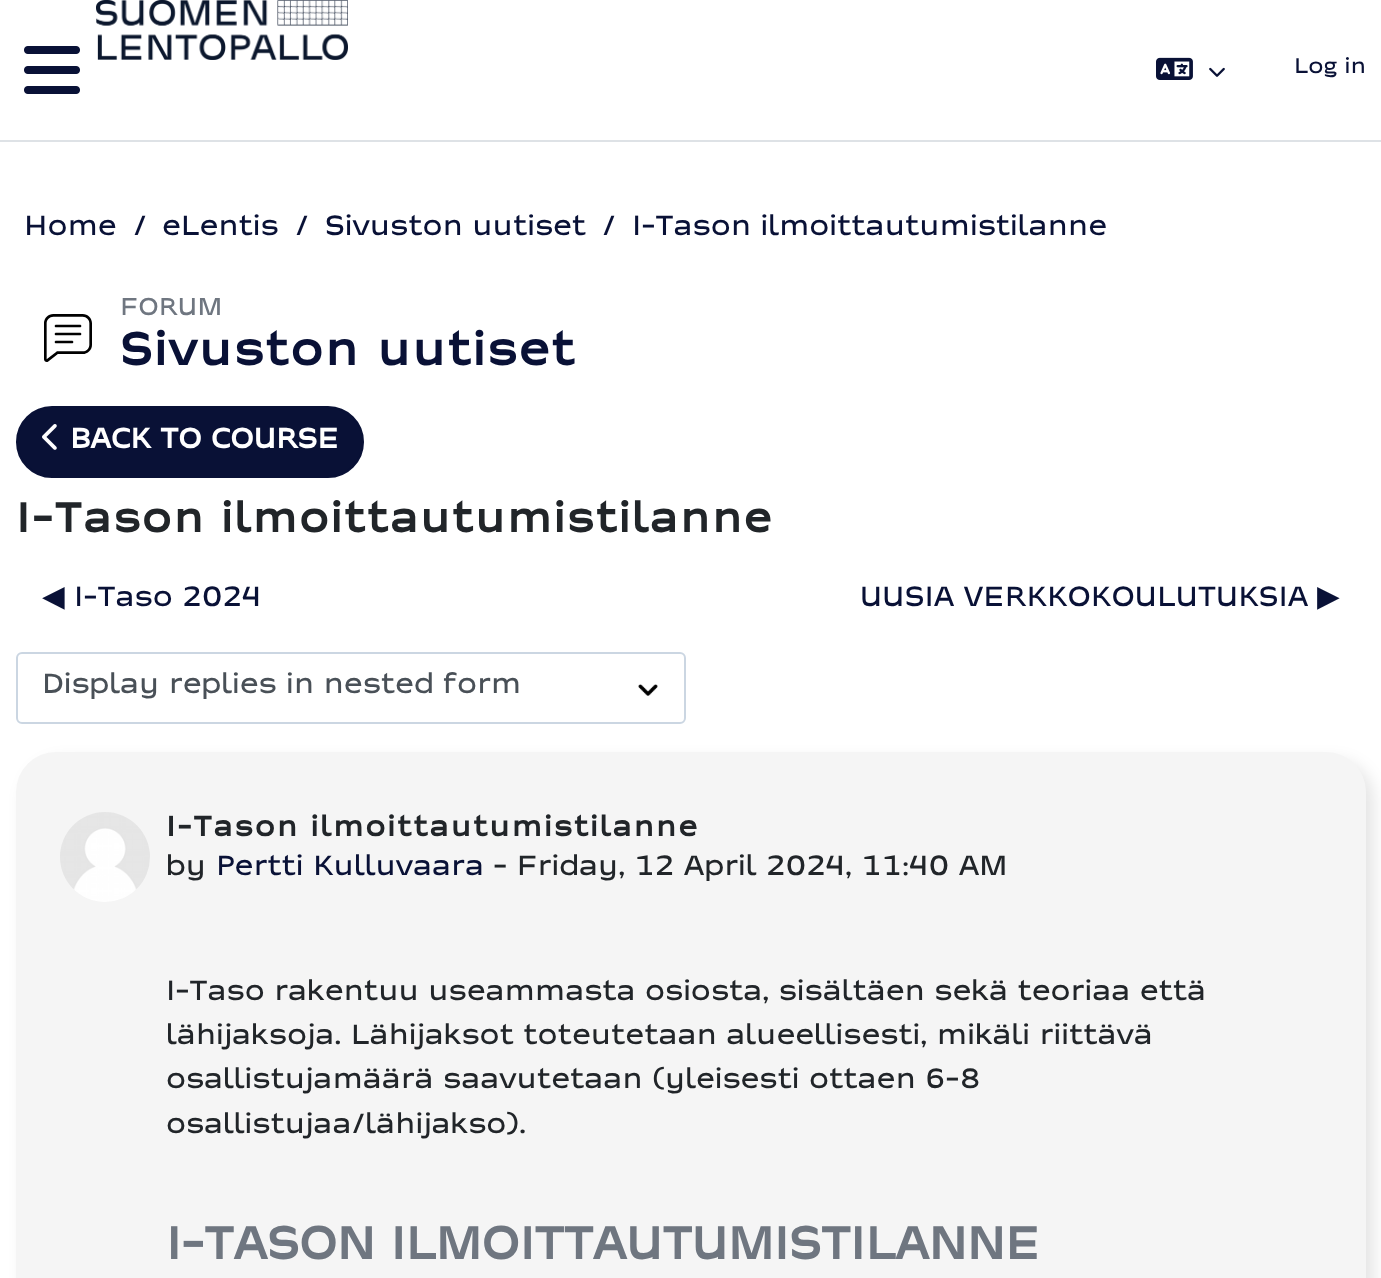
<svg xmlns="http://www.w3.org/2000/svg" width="1381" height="1278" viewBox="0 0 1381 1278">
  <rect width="100%" height="100%" fill="#fff"/>
  <path d="M0 140h1381v2H0z" fill="#dee2e6"/>
  <image x="96" y="0" width="252" height="60" href="img/1.png"/>
  <image x="24" y="46" width="56" height="48" href="img/2.png"/>
  <image x="1156" y="57" width="37" height="23" href="img/3.png"/>
  <image x="1209" y="67" width="16" height="10" href="img/4.png"/>
  <image x="44" y="314" width="48" height="48" href="img/5.png"/>
  <rect x="17" y="407" width="346" height="70" rx="35" fill="#091136" stroke="#091136" stroke-width="2"/>
  <image x="42" y="424" width="15" height="26" href="img/6.png"/>
  <image x="638" y="684" width="20" height="12" href="img/7.png"/>
  <rect x="17" y="653" width="668" height="70" rx="5" fill="none" stroke="#cbd6e2" stroke-width="2"/>
  <rect x="24" y="760" width="1350" height="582" rx="40" fill="#0000001a" filter="blur(8px)"/>
  <rect x="16" y="752" width="1350" height="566" rx="40" fill="#f5f5f5"/>
  <image x="60" y="812" width="90" height="90" href="img/8.png"/>
  <text x="1294" y="73" font-family="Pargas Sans" font-size="22.5" font-weight="500" fill="#091136">Log in</text>
  <g font-family="Pargas Sans" font-size="29.55" font-weight="500" fill="#091136">
    <text x="24" y="235">Home</text>
    <text x="133" y="235">/</text>
    <text x="162" y="235">eLentis</text>
    <text x="295" y="235">/</text>
    <text x="325" y="235">Sivuston uutiset</text>
    <text x="602" y="235">/</text>
    <text x="632" y="235">I-Tason ilmoittautumistilanne</text>
  </g>
  <text x="120" y="315" font-family="Pargas Sans" font-size="26" font-weight="500" fill="#6f7680">FORUM</text>
  <text x="120" y="365" font-family="Pargas Sans" font-size="48" font-weight="bold" letter-spacing="2" fill="#091136">Sivuston uutiset</text>
  <text x="70" y="448" font-family="Pargas Sans" font-size="29.55" font-weight="bold" fill="#fff">BACK TO COURSE</text>
  <text x="16" y="532" font-family="Pargas Sans" font-size="43.5" font-weight="bold" letter-spacing="2" fill="#212529">I-Tason ilmoittautumistilanne</text>
  <text x="42" y="606" font-family="DejaVu Sans" font-size="29.55" fill="#091136">◀︎</text>
  <g font-family="Pargas Sans" font-size="29.55" font-weight="500" fill="#091136">
    <text x="74" y="606">I-Taso 2024</text>
    <text x="860" y="606">UUSIA VERKKOKOULUTUKSIA</text>
  </g>
  <text x="1317" y="606" font-family="DejaVu Sans" font-size="29.55" fill="#091136">▶︎</text>
  <text x="42" y="693" font-family="Pargas Sans" font-size="29.55" font-weight="500" fill="#495057">Display replies in nested form</text>
  <text x="166" y="836" font-family="Pargas Sans" font-size="29.55" font-weight="bold" letter-spacing="2" fill="#212529">I-Tason ilmoittautumistilanne</text>
  <text x="166" y="875" font-family="Pargas Sans" font-size="29.55" font-weight="500" fill="#212529">by</text>
  <text x="216" y="875" font-family="Pargas Sans" font-size="29.55" font-weight="500" fill="#091136">Pertti Kulluvaara</text>
  <g font-family="Pargas Sans" font-size="29.55" font-weight="500" fill="#212529">
    <text x="493" y="875">- Friday, 12 April 2024, 11:40 AM</text>
    <text x="166" y="1000">I-Taso rakentuu useammasta osiosta, sisältäen sekä teoriaa että</text>
    <text x="166" y="1044">lähijaksoja. Lähijaksot toteutetaan alueellisesti, mikäli riittävä</text>
    <text x="166" y="1088">osallistujamäärä saavutetaan (yleisesti ottaen 6-8</text>
    <text x="166" y="1133">osallistujaa/lähijakso).</text>
  </g>
  <text x="166" y="1259" font-family="Pargas Sans" font-size="48" font-weight="bold" fill="#6f7680">I-TASON ILMOITTAUTUMISTILANNE</text>
</svg>
